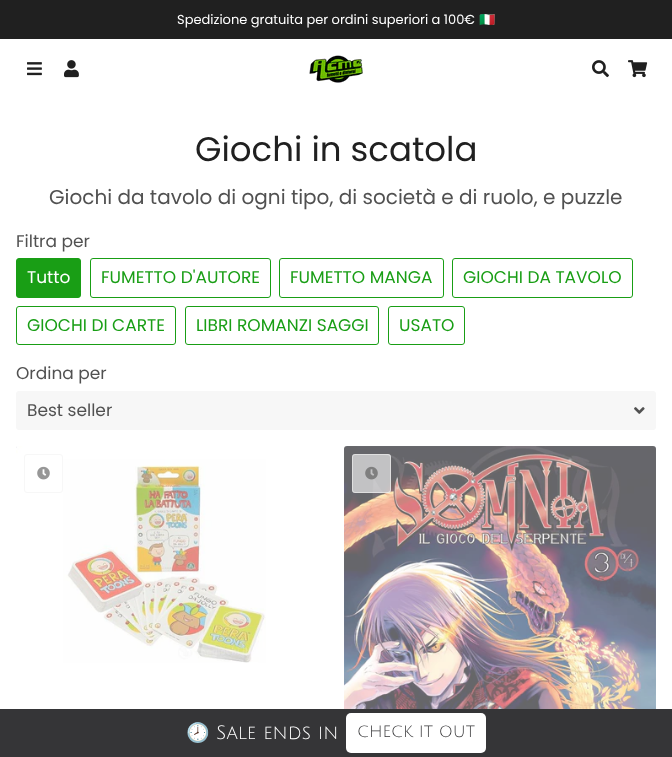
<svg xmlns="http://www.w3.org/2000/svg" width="672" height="757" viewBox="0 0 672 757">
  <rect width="100%" height="100%" fill="#fff"/>
  <path d="M0 0h672v39H0z" fill="#202020"/>
  <image x="27" y="62" width="15" height="14" href="img/1.png"/>
  <image x="64" y="60" width="15" height="18" href="img/2.png"/>
  <image x="309" y="55" width="54" height="28" href="img/3.png"/>
  <image x="592" y="60" width="17" height="18" href="img/4.png"/>
  <image x="628" y="60" width="20" height="18" href="img/5.png"/>
  <rect x="16.5" y="258.5" width="64" height="39" rx="2.5" fill="#199e15" stroke="#199e15"/>
  <rect x="90.5" y="258.5" width="180" height="39" rx="2.5" fill="none" stroke="#199e15"/>
  <rect x="279.5" y="258.5" width="164" height="39" rx="2.5" fill="none" stroke="#199e15"/>
  <rect x="452.5" y="258.5" width="180" height="39" rx="2.5" fill="none" stroke="#199e15"/>
  <rect x="16.5" y="306.5" width="159" height="38" rx="2.5" fill="none" stroke="#199e15"/>
  <rect x="185.5" y="306.5" width="193" height="38" rx="2.5" fill="none" stroke="#199e15"/>
  <rect x="388.5" y="306.5" width="76" height="38" rx="2.5" fill="none" stroke="#199e15"/>
  <rect x="16" y="391" width="640" height="39" rx="3" fill="#f7f7f7"/>
  <image x="634" y="407" width="11" height="7" href="img/6.png"/>
  <image x="16" y="446" width="250" height="217" href="img/7.png"/>
  <rect x="24.5" y="454.5" width="38" height="38" rx="2.5" fill="none" stroke="#f7f7f7"/>
  <image x="37" y="466" width="13" height="14" href="img/8.png"/>
  <image x="344" y="446" width="312" height="263" href="img/9.png"/>
  <rect x="352" y="454" width="39" height="39" rx="3" fill="#ffffff99"/>
  <rect x="352.5" y="454.5" width="38" height="38" rx="2.5" fill="none" stroke="#f2f2f299"/>
  <image x="365" y="466" width="13" height="14" href="img/10.png"/>
  <path d="M0 709h672v48H0z" fill="#353537"/>
  <rect x="346" y="713" width="140" height="40" rx="5" fill="#fff"/>
  <text x="177" y="24" font-family="Poppins" font-size="13" fill="#fff">Spedizione gratuita per ordini superiori a 100€</text>
  <text x="479" y="24" font-family="Noto Color Emoji" font-size="13" fill="#fff">🇮🇹</text>
  <text x="195" y="161" font-family="Poppins" font-size="34" fill="#202020">Giochi in scatola</text>
  <text x="49" y="204" font-family="Poppins" font-size="20" fill="#515151">Giochi da tavolo di ogni tipo, di società e di ruolo, e puzzle</text>
  <text x="16" y="247" font-family="Poppins" font-size="17" fill="#515151">Filtra per</text>
  <text x="27" y="283" font-family="Poppins" font-size="17" fill="#fff">Tutto</text>
  <g font-family="Poppins" font-size="17" fill="#199e15">
    <text x="101" y="283">FUMETTO D'AUTORE</text>
    <text x="290" y="283">FUMETTO MANGA</text>
    <text x="463" y="283">GIOCHI DA TAVOLO</text>
    <text x="27" y="331">GIOCHI DI CARTE</text>
    <text x="196" y="331">LIBRI ROMANZI SAGGI</text>
    <text x="399" y="331">USATO</text>
  </g>
  <g font-family="Poppins" font-size="17" fill="#515151">
    <text x="16" y="379">Ordina per</text>
    <text x="27" y="416">Best seller</text>
  </g>
  <text x="186" y="739" font-family="Noto Color Emoji" font-size="19" fill="#fff">🕗</text>
  <text x="216" y="739" font-family="Julius Sans One" font-size="19" fill="#fff">Sale ends in</text>
  <text x="357" y="737" font-family="Julius Sans One" font-size="16" fill="#353537">CHECK IT OUT</text>
</svg>
